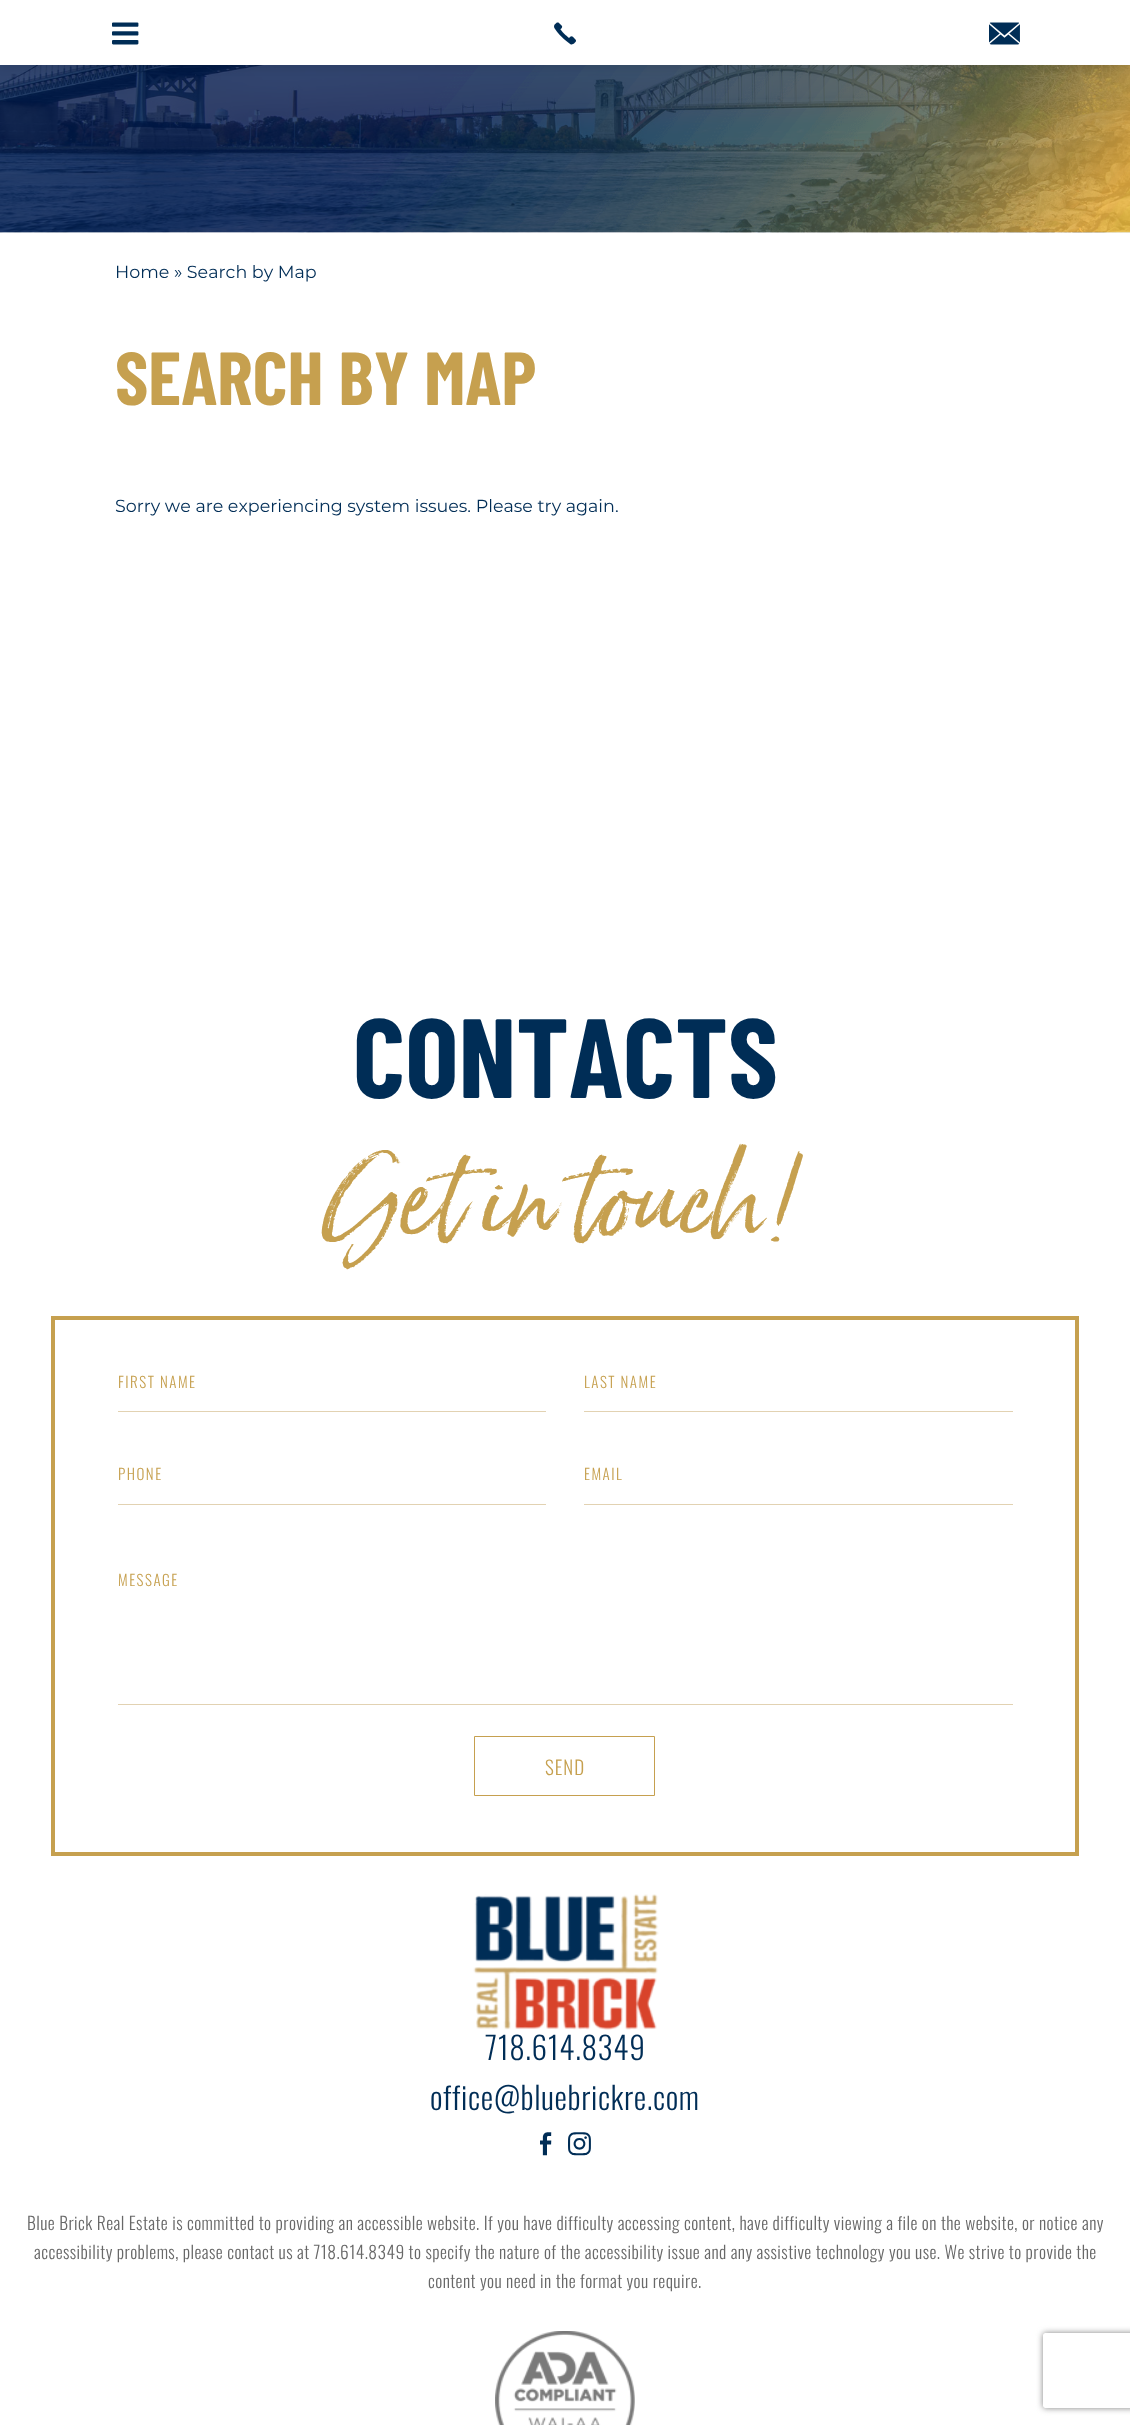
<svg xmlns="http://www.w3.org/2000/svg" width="1130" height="2425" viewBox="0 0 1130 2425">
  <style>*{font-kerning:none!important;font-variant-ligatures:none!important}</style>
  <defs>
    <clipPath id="clip1"><path d="M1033 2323H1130V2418H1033ZM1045.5 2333H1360.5C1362 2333 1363 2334 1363 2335.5V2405.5C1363 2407 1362 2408 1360.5 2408H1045.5C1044 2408 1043 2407 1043 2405.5V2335.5C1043 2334 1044 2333 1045.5 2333Z" clip-rule="evenodd"/></clipPath>
  </defs>
  <rect width="100%" height="100%" fill="#fff"/>
  <image x="0" y="65" width="1130" height="168" href="img/1.png"/>
  <image x="0" y="65" width="1130" height="168" href="img/2.png"/>
  <path d="M0 3h1130v65H0z" fill="#00010117" filter="blur(4.5px)"/>
  <path d="M0 0h1130v65H0z" fill="#fff"/>
  <path d="M53 1318h1024v536H53z" fill="none" stroke="#c6a04f" stroke-width="4"/>
  <path d="M118 1411h428v1H118z" fill="#e2d2b2"/>
  <path d="M584 1411h429v1H584z" fill="#e2d2b2"/>
  <path d="M118 1504h428v1H118z" fill="#e2d2b2"/>
  <path d="M584 1504h429v1H584z" fill="#e2d2b2"/>
  <path d="M118 1704h895v1H118z" fill="#e2d2b2"/>
  <path d="M474.5 1736.5h180v59H474.5z" fill="none" stroke="#c6a04f"/>
  <image x="473" y="1894" width="186" height="136" href="img/3.png"/>
  <image x="495" y="2331" width="140" height="94" href="img/4.png"/>
  <g clip-path="url(#clip1)">
    <rect x="1043" y="2333" width="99" height="75" rx="2.5" fill="#808080" filter="blur(3px)"/>
  </g>
  <g font-family="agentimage" font-size="22" fill="#002d56">
    <text x="112" y="43">򰁰</text>
    <text x="554" y="43">򰁩</text>
    <text x="989" y="43">򰄢</text>
  </g>
  <text x="115" y="278" font-family="Montserrat" font-size="17.5" fill="#002d56">Home » Search by Map</text>
  <text x="115" y="405" font-family="Barlow Condensed" font-size="75" font-weight="bold" fill="#c6a04f">SEARCH BY MAP</text>
  <text x="115" y="512" font-family="Montserrat" font-size="17.5" fill="#002d56">Sorry we are experiencing system issues. Please try again.</text>
  <text x="353" y="1098" font-family="Barlow Condensed" font-size="112.5" font-weight="bold" fill="#002d56">CONTACTS</text>
  <text x="323" y="1230" font-family="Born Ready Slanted" font-size="100" fill="#c6a04f">Get in touch!</text>
  <g font-family="Oswald" font-size="15" font-weight="300" letter-spacing="1.5" fill="#c6a04f">
    <text x="118" y="1388">FIRST NAME</text>
    <text x="584" y="1388">LAST NAME</text>
    <text x="118" y="1480">PHONE</text>
    <text x="584" y="1480">EMAIL</text>
    <text x="118" y="1586">MESSAGE</text>
  </g>
  <text x="545" y="1775" font-family="Oswald" font-size="19" font-weight="300" letter-spacing="1" fill="#c6a04f">SEND</text>
  <g font-family="Oswald" font-size="31.25" font-weight="300" letter-spacing="0.6" fill="#002d56">
    <text x="485" y="2060">718.614.8349</text>
    <text x="430" y="2110">office@bluebrickre.com</text>
  </g>
  <g font-family="agentimage" font-size="28" fill="#002d56">
    <text x="540" y="2156">򰄔</text>
    <text x="568" y="2156">򰄆</text>
  </g>
  <g font-family="Oswald" font-size="17.5" font-weight="300" letter-spacing="0.44" fill="#686868">
    <text x="27" y="2230">Blue Brick Real Estate is committed to providing an accessible website. If you have difficulty accessing content, have difficulty viewing a file on the website, or notice any</text>
    <text x="34" y="2259">accessibility problems, please contact us at 718.614.8349 to specify the nature of the accessibility issue and any assistive technology you use. We strive to provide the</text>
    <text x="428" y="2288">content you need in the format you require.</text>
  </g>
</svg>
